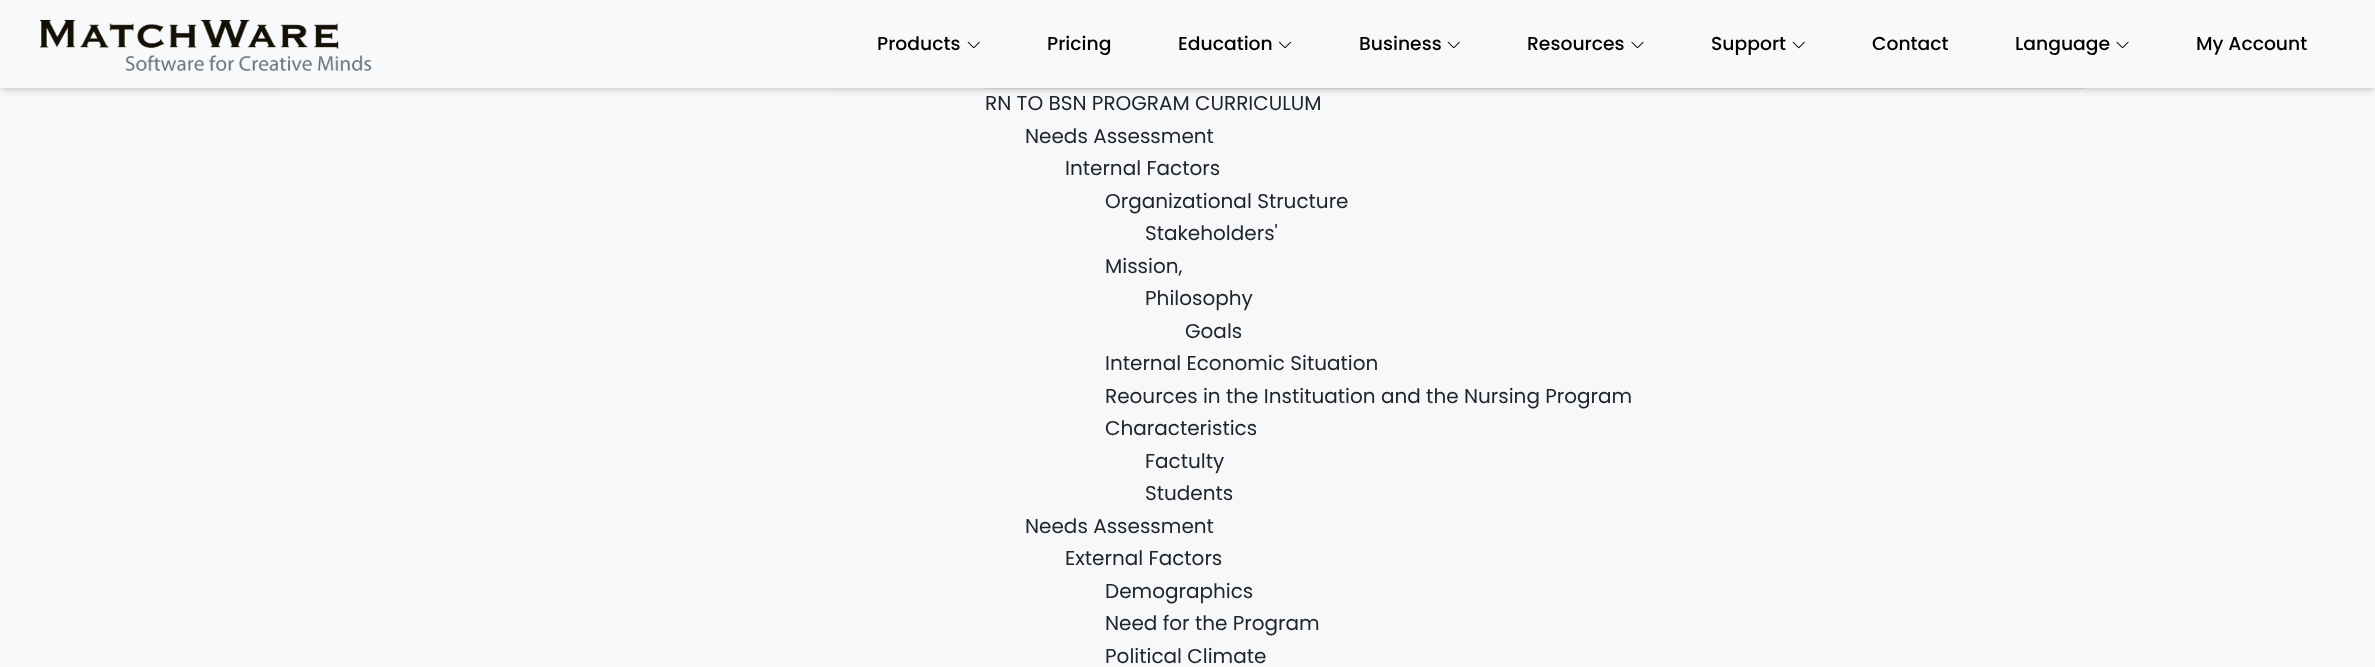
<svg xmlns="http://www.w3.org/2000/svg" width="2375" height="667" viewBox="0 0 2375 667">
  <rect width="100%" height="100%" fill="#f6f8f9"/>
  <path d="M281 88h554v579H281z" fill="#f9f9f9"/>
  <path d="M985 88h1100v1H985z" fill="#ddd"/>
  <path d="M1 3h2373v85H1z" fill="#afafaf" filter="blur(4px)"/>
  <path d="M0 0h2375v88H0z" fill="#f8f9fa"/>
  <image x="40" y="19" width="332" height="52" href="img/1.png"/>
  <image x="967" y="41" width="13" height="8" href="img/2.png"/>
  <image x="1279" y="41" width="12" height="8" href="img/3.png"/>
  <image x="1447" y="41" width="13" height="8" href="img/2.png"/>
  <image x="1631" y="41" width="13" height="8" href="img/4.png"/>
  <image x="1792" y="41" width="13" height="8" href="img/2.png"/>
  <image x="2116" y="41" width="13" height="8" href="img/4.png"/>
  <g font-family="Poppins" font-size="18.75" font-weight="500" fill="#000">
    <text x="877" y="50">Products</text>
    <text x="1047" y="50">Pricing</text>
    <text x="1178" y="50">Education</text>
    <text x="1359" y="50">Business</text>
    <text x="1527" y="50">Resources</text>
    <text x="1711" y="50">Support</text>
    <text x="1872" y="50">Contact</text>
    <text x="2015" y="50">Language</text>
    <text x="2196" y="50">My Account</text>
  </g>
  <g font-family="Poppins" font-size="20" fill="#212529">
    <text x="985" y="110">RN TO BSN PROGRAM CURRICULUM</text>
    <text x="1025" y="143">Needs Assessment</text>
    <text x="1065" y="175">Internal Factors</text>
    <text x="1105" y="208">Organizational Structure</text>
    <text x="1145" y="240">Stakeholders'</text>
    <text x="1105" y="273">Mission,</text>
    <text x="1145" y="305">Philosophy</text>
    <text x="1185" y="338">Goals</text>
    <text x="1105" y="370">Internal Economic Situation</text>
    <text x="1105" y="403">Reources in the Instituation and the Nursing Program</text>
    <text x="1105" y="435">Characteristics</text>
    <text x="1145" y="468">Factulty</text>
    <text x="1145" y="500">Students</text>
    <text x="1025" y="533">Needs Assessment</text>
    <text x="1065" y="565">External Factors</text>
    <text x="1105" y="598">Demographics</text>
    <text x="1105" y="630">Need for the Program</text>
    <text x="1105" y="663">Political Climate</text>
  </g>
</svg>
